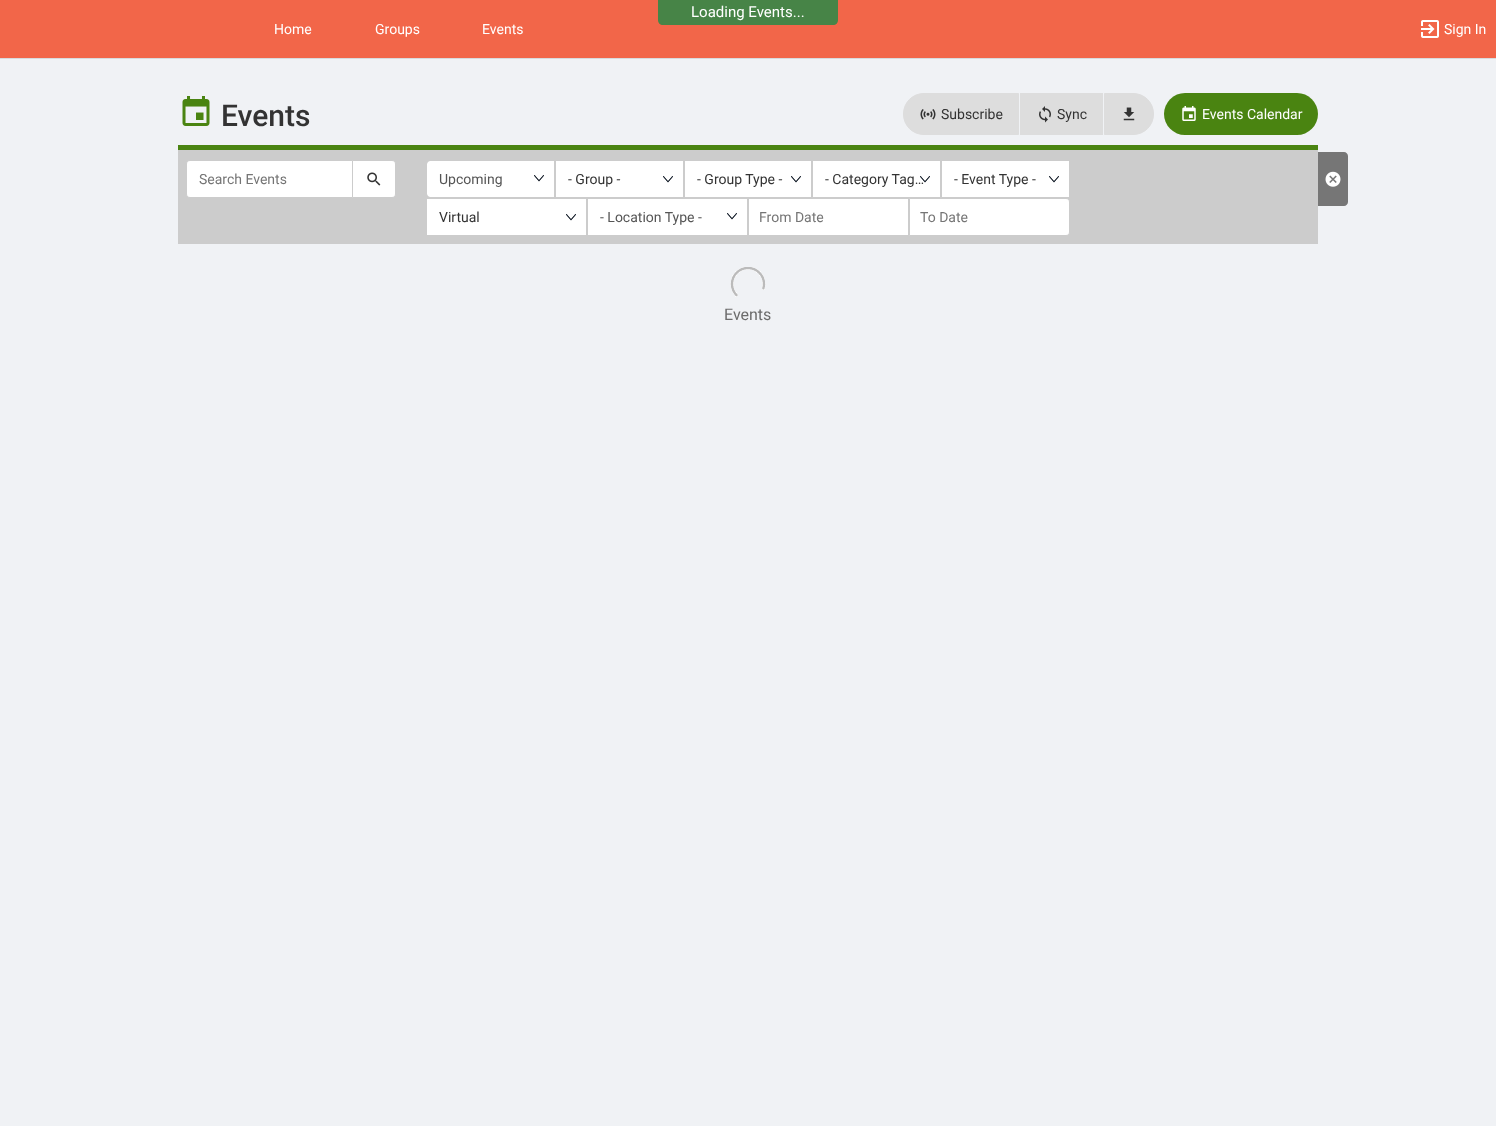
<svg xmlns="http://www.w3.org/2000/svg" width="1496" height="1126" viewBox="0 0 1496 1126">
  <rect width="100%" height="100%" fill="#f0f2f5"/>
  <path d="M0 0h1496v58H0z" fill="#f26649"/>
  <path d="M658 0H838V20C838 23 836 25 833 25H663C660 25 658 23 658 20Z" fill="#478447"/>
  <path d="M0 58h1496v1H0z" fill="#d8dadd"/>
  <image x="1421" y="20" width="18" height="18" href="img/1.png"/>
  <image x="182" y="96" width="28" height="30" href="img/2.png"/>
  <path d="M924 93.5H1018.5V134.5H924C912.5 134.5 903.5 125.5 903.5 114C903.5 102.5 912.5 93.5 924 93.5Z" fill="#ddd" stroke="#ddd"/>
  <image x="920" y="109" width="16" height="11" href="img/3.png"/>
  <path d="M1020 93h83v42H1020z" fill="#ddd"/>
  <image x="1039" y="106" width="12" height="17" href="img/4.png"/>
  <path d="M1104.5 93.5H1133C1144.5 93.5 1153.5 102.5 1153.5 114C1153.5 125.5 1144.5 134.5 1133 134.5H1104.5Z" fill="#ddd" stroke="#ddd"/>
  <image x="1123" y="107" width="12" height="14" href="img/5.png"/>
  <rect x="1164" y="93" width="154" height="42" rx="21" fill="#4a8411"/>
  <image x="1182" y="106" width="14" height="15" href="img/6.png"/>
  <path d="M178 145h1140v5H178z" fill="#4a8411"/>
  <path d="M178 150h1140v94H178z" fill="#ccc"/>
  <path d="M190 160.5H352.5V197.5H190C188 197.5 186.5 196 186.5 194V164C186.5 162 188 160.5 190 160.5Z" fill="#fff" stroke="#ccc"/>
  <path d="M352.5 160.5H392C394 160.5 395.5 162 395.5 164V194C395.5 196 394 197.5 392 197.5H352.5Z" fill="#fff" stroke="#ccc"/>
  <image x="367" y="172" width="14" height="14" href="img/7.png"/>
  <path d="M430 161H554V197H430C428.5 197 427 195.5 427 194V164C427 162.5 428.5 161 430 161Z" fill="#fff"/>
  <image x="534" y="175" width="10" height="7" href="img/8.png"/>
  <path d="M430 160.5H554.5V197.5H430C428 197.5 426.5 196 426.5 194V164C426.5 162 428 160.5 430 160.5Z" fill="none" stroke="#ccc"/>
  <path d="M556 161h127v36H556z" fill="#fff"/>
  <image x="663" y="176" width="10" height="7" href="img/8.png"/>
  <path d="M685 161h126v36H685z" fill="#fff"/>
  <image x="791" y="176" width="10" height="7" href="img/8.png"/>
  <path d="M813 161h127v36H813z" fill="#fff"/>
  <image x="920" y="176" width="10" height="7" href="img/8.png"/>
  <path d="M942 161h127v36H942z" fill="#fff"/>
  <image x="1049" y="176" width="10" height="7" href="img/8.png"/>
  <path d="M427 199h159v36H427z" fill="#fff"/>
  <image x="566" y="214" width="10" height="7" href="img/8.png"/>
  <path d="M588 199h159v36H588z" fill="#fff"/>
  <image x="727" y="213" width="10" height="7" href="img/8.png"/>
  <path d="M749 199h159v36H749z" fill="#fff"/>
  <path d="M909.5 198.5H1066C1068 198.5 1069.5 200 1069.5 202V232C1069.5 234 1068 235.5 1066 235.5H909.5Z" fill="#fff" stroke="#ccc"/>
  <path d="M1318 152H1344C1346 152 1348 154 1348 156V202C1348 204 1346 206 1344 206H1318Z" fill="#767676"/>
  <image x="1325" y="171" width="16" height="16" href="img/9.png"/>
  <image x="730" y="267" width="36" height="30" href="img/10.png"/>
  <text x="691" y="17" font-family="Roboto" font-size="15" fill="#fff">Loading Events...</text>
  <g font-family="Roboto" font-size="14" fill="#fff">
    <text x="274" y="34">Home</text>
    <text x="375" y="34">Groups</text>
    <text x="482" y="34">Events</text>
    <text x="1444" y="34">Sign In</text>
  </g>
  <text x="221" y="126" font-family="Roboto" font-size="30" font-weight="500" fill="#333">Events</text>
  <g font-family="Roboto" font-size="14" fill="#333">
    <text x="941" y="119">Subscribe</text>
    <text x="1057" y="119">Sync</text>
  </g>
  <text x="1202" y="119" font-family="Roboto" font-size="14" fill="#fff">Events Calendar</text>
  <text x="199" y="184" font-family="Roboto" font-size="14" fill="#757575">Search Events</text>
  <text x="439" y="184" font-family="Roboto" font-size="14" fill="#555">Upcoming</text>
  <g font-family="Roboto" font-size="14" fill="#333">
    <text x="568" y="184">- Group -</text>
    <text x="697" y="184">- Group Type -</text>
    <text x="825" y="184">- Category Tag…</text>
    <text x="954" y="184">- Event Type -</text>
    <text x="439" y="222">Virtual</text>
  </g>
  <text x="600" y="222" font-family="Roboto" font-size="14" fill="#555">- Location Type -</text>
  <g font-family="Roboto" font-size="14" fill="#757575">
    <text x="759" y="222">From Date</text>
    <text x="920" y="222">To Date</text>
  </g>
  <text x="724" y="320" font-family="Roboto" font-size="16" fill="#6c6c6c">Events</text>
</svg>
